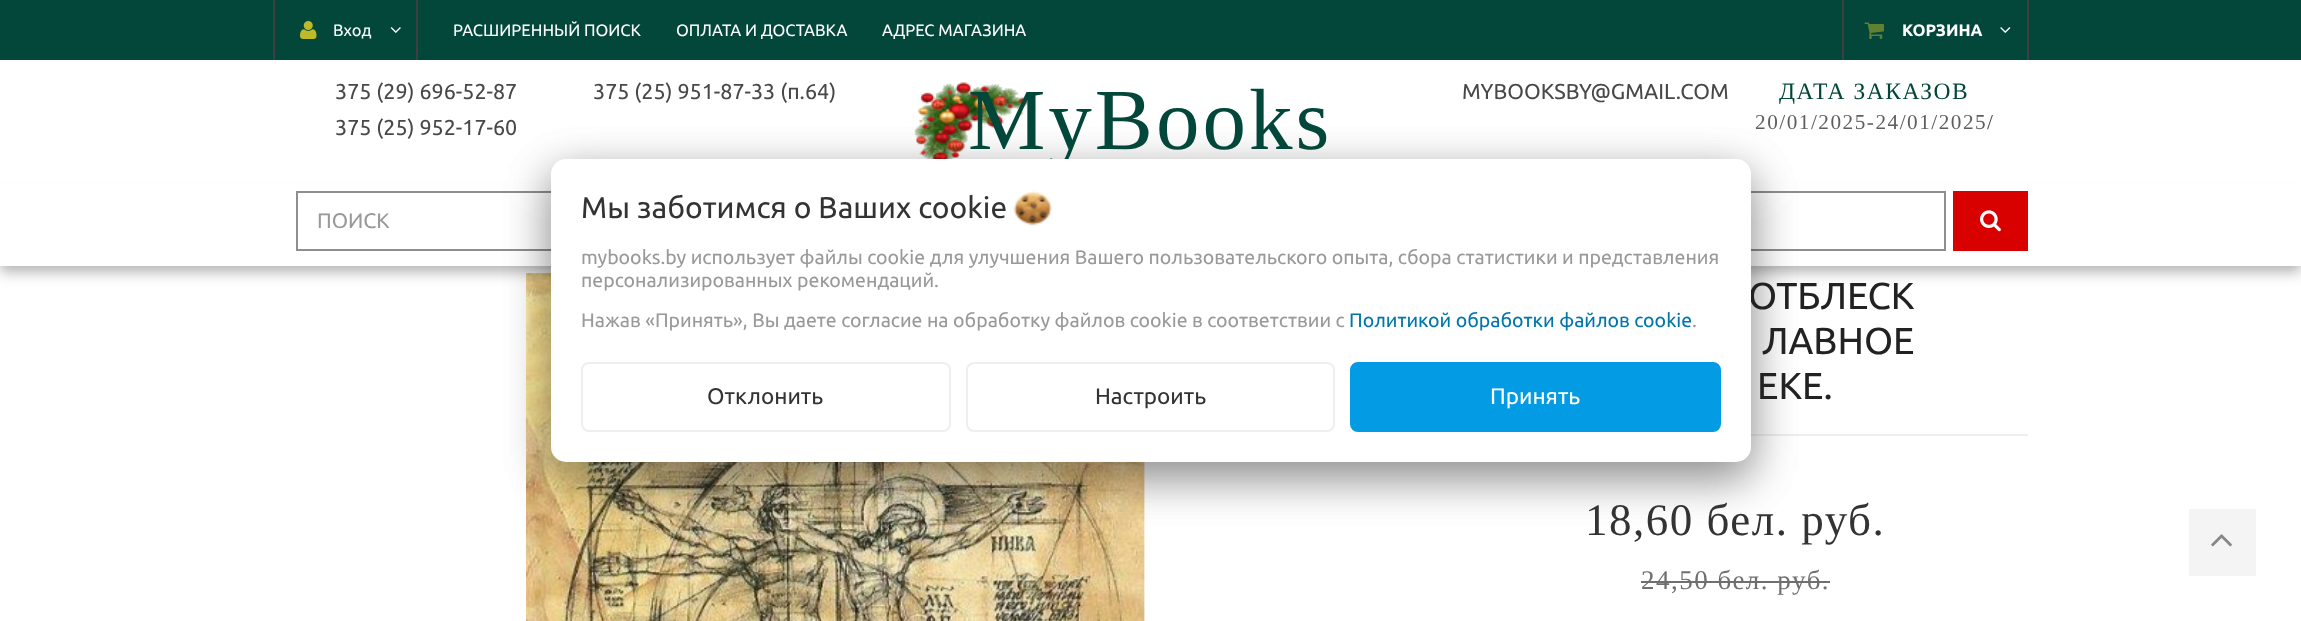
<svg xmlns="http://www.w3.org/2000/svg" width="2301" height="621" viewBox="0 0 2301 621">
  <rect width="100%" height="100%" fill="#fff"/>
  <path d="M0 0h2301v60H0z" fill="#03473b"/>
  <path d="M416 0h2v60H416z" fill="#3f3f43"/>
  <path d="M273 0h2v60H273z" fill="#3f3f43"/>
  <image x="300" y="21" width="17" height="18" href="img/1.png"/>
  <image x="390" y="27" width="11" height="6" href="img/2.png"/>
  <path d="M2027 0h2v60H2027z" fill="#3f3f43"/>
  <path d="M1842 0h2v60H1842z" fill="#3f3f43"/>
  <image x="1864" y="22" width="20" height="17" href="img/3.png"/>
  <image x="2000" y="27" width="11" height="6" href="img/4.png"/>
  <image x="526" y="273" width="619" height="348" href="img/7.png"/>
  <path d="M0 197h2301v75H0z" fill="#0000004d" filter="blur(7px)"/>
  <path d="M0 184h2301v82H0z" fill="#fff"/>
  <image x="914" y="82" width="114" height="77" href="img/5.png"/>
  <path d="M297 192h1648v58H297z" fill="none" stroke="#8f8e8e" stroke-width="2"/>
  <path d="M1953 191h75v60H1953z" fill="#d90000"/>
  <image x="1980" y="210" width="21" height="22" href="img/6.png"/>
  <path d="M1751 434h277v2H1751z" fill="#eee"/>
  <path d="M1641 581h189v2H1641z" fill="#6f6f6f"/>
  <rect x="551" y="174" width="1200" height="303" rx="15" fill="#00000042" filter="blur(22.5px)"/>
  <rect x="551" y="174" width="1200" height="303" rx="15" fill="#00000042" filter="blur(22.5px)"/>
  <path d="M2189 509h67v67H2189z" fill="#f4f4f4"/>
  <image x="2211" y="534" width="21" height="13" href="img/9.png"/>
  <g font-family="Ubuntu" font-size="16.5" fill="#fff">
    <text x="333" y="36">Вход</text>
    <text x="453" y="36">РАСШИРЕННЫЙ ПОИСК</text>
    <text x="676" y="36">ОПЛАТА И ДОСТАВКА</text>
    <text x="882" y="36">АДРЕС МАГАЗИНА</text>
  </g>
  <text x="1902" y="36" font-family="Ubuntu" font-size="16.5" font-weight="bold" fill="#fff">КОРЗИНА</text>
  <g font-family="Ubuntu" font-size="21.5" fill="#484848">
    <text x="335" y="99">375 (29) 696-52-87</text>
    <text x="335" y="135">375 (25) 952-17-60</text>
    <text x="593" y="99">375 (25) 951-87-33 (п.64)</text>
  </g>
  <text x="968" y="149" font-family="Liberation Serif" font-size="87" letter-spacing="3" fill="#03473b">MyBooks</text>
  <text x="1462" y="99" font-family="Ubuntu" font-size="21.5" fill="#484848">MYBOOKSBY@GMAIL.COM</text>
  <text x="1779" y="99" font-family="Liberation Serif" font-size="23.5" letter-spacing="1.5" fill="#03473b">ДАТА ЗАКАЗОВ</text>
  <text x="1755" y="129" font-family="Liberation Serif" font-size="21.25" letter-spacing="1.5" fill="#5e5e5e">20/01/2025-24/01/2025</text>
  <text x="1987" y="129" font-family="Liberation Serif" font-size="21.25" letter-spacing="1.5" fill="#484848">/</text>
  <text x="317" y="228" font-family="Ubuntu" font-size="21" fill="#999">ПОИСК</text>
  <g font-family="Ubuntu" font-size="37.5" fill="#222">
    <text x="1748" y="309">ОТБЛЕСК</text>
    <text x="1762" y="354">ЛАВНОЕ</text>
    <text x="1757" y="399">ЕКЕ.</text>
  </g>
  <text x="1585" y="535" font-family="Liberation Serif" font-size="45" letter-spacing="1.5" fill="#333">18,60 бел. руб.</text>
  <text x="1641" y="589" font-family="Liberation Serif" font-size="27" letter-spacing="1.5" fill="#6f6f6f">24,50 бел. руб.</text>
  <rect x="551" y="159" width="1200" height="303" rx="15" fill="#fff"/>
  <text x="581" y="218" font-family="Ubuntu" font-size="30" fill="#333">Мы заботимся о Ваших cookie</text>
  <image x="1013" y="190" width="39" height="36" href="img/8.png"/>
  <g font-family="Ubuntu" font-size="19.5" fill="#999">
    <text x="581" y="264">mybooks.by использует файлы cookie для улучшения Вашего пользовательского опыта, сбора статистики и представления</text>
    <text x="581" y="287">персонализированных рекомендаций.</text>
    <text x="581" y="327">Нажав «Принять», Вы даете согласие на обработку файлов cookie в соответствии с</text>
  </g>
  <text x="1349" y="327" font-family="Ubuntu" font-size="19.5" fill="#0176ac">Политикой обработки файлов cookie</text>
  <text x="1692" y="327" font-family="Ubuntu" font-size="19.5" fill="#999">.</text>
  <rect x="582" y="363" width="368" height="68" rx="7" fill="none" stroke="#eee" stroke-width="2"/>
  <text x="707" y="404" font-family="Ubuntu" font-size="22.5" fill="#333">Отклонить</text>
  <rect x="967" y="363" width="367" height="68" rx="7" fill="none" stroke="#eee" stroke-width="2"/>
  <text x="1095" y="404" font-family="Ubuntu" font-size="22.5" fill="#333">Настроить</text>
  <rect x="1351" y="363" width="369" height="68" rx="7" fill="#039ce4" stroke="#039ce4" stroke-width="2"/>
  <text x="1490" y="404" font-family="Ubuntu" font-size="22.5" fill="#fff">Принять</text>
</svg>
